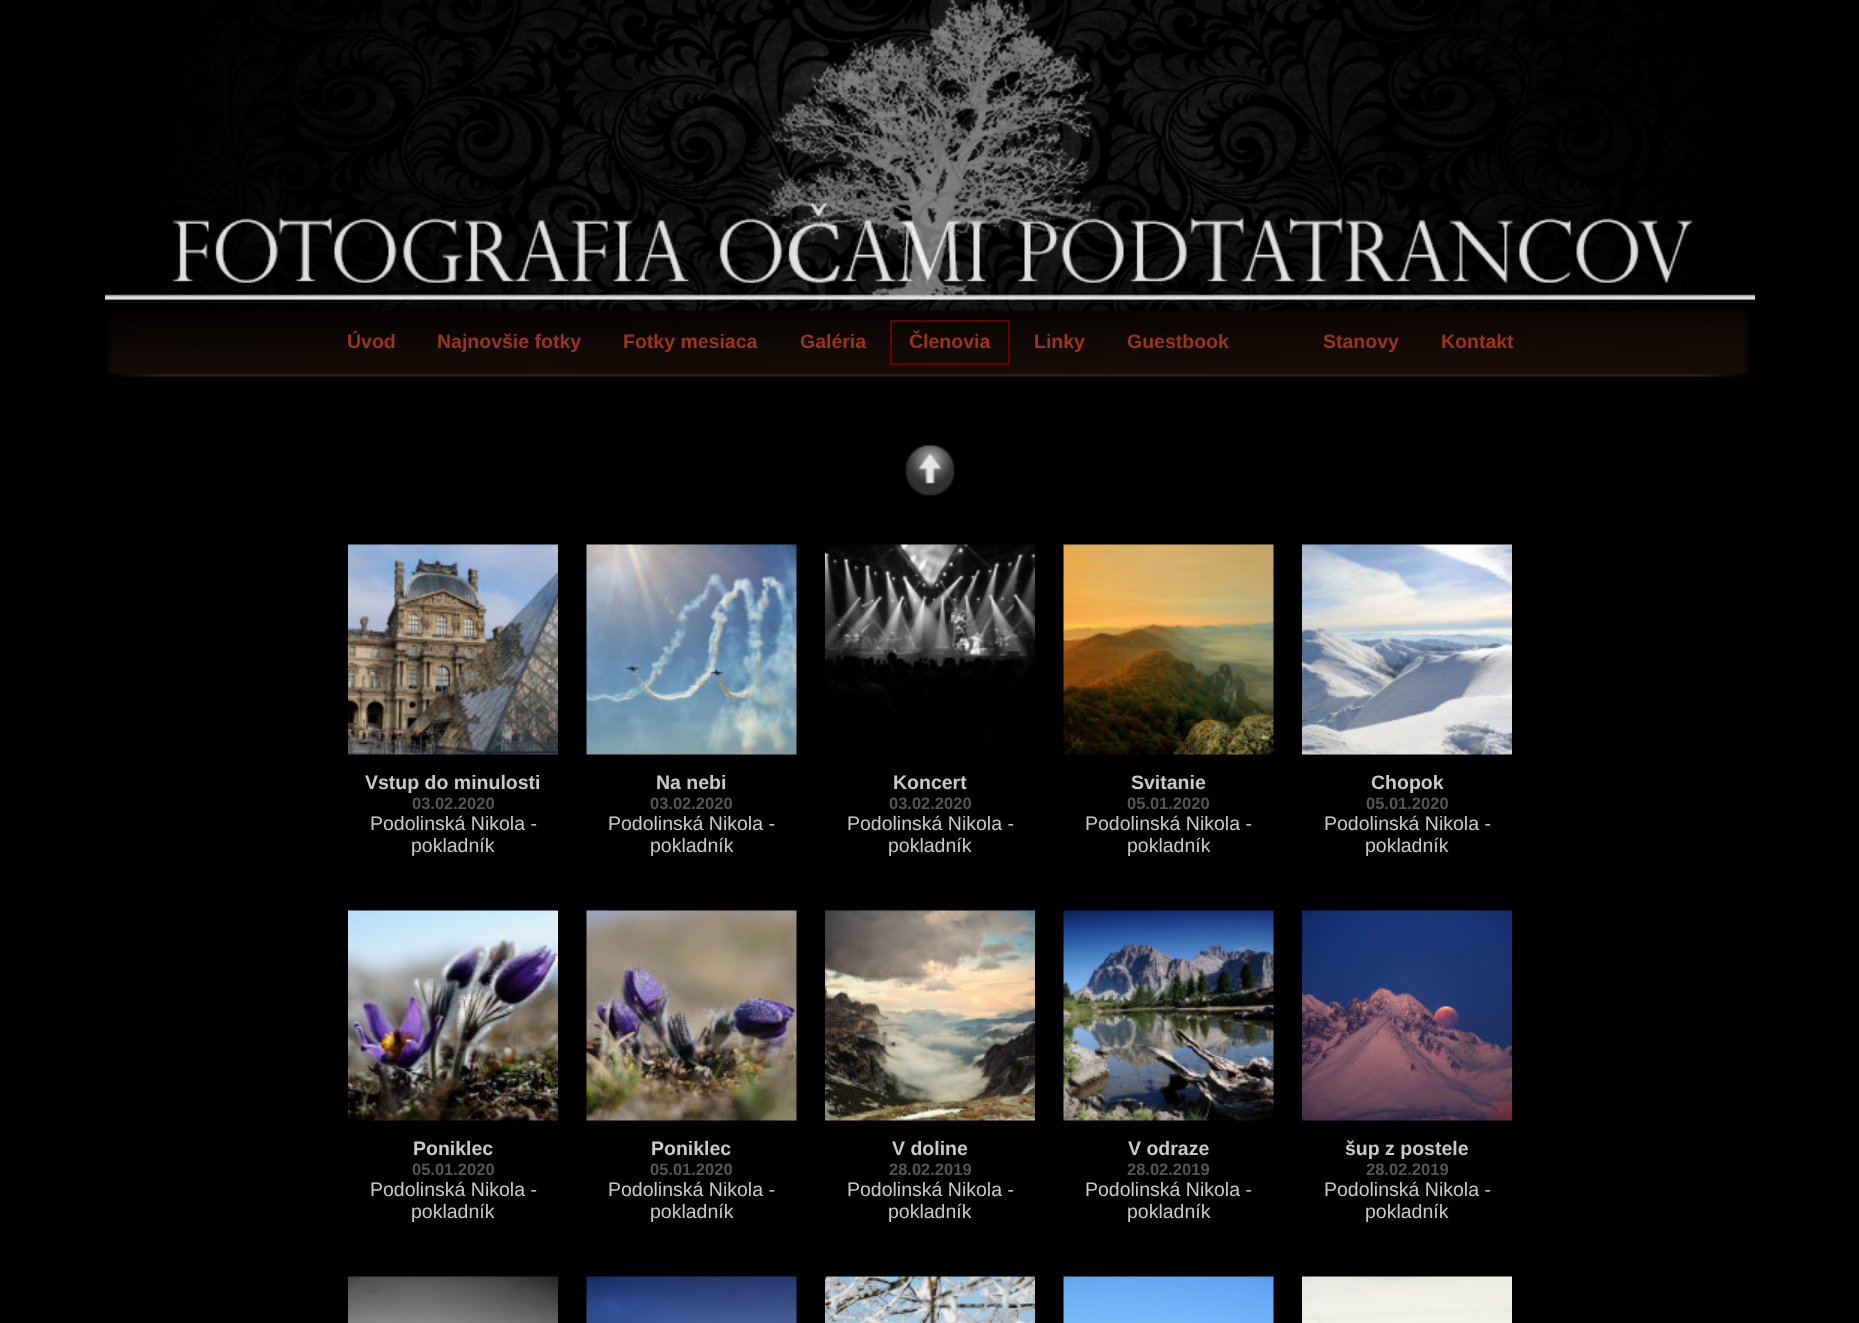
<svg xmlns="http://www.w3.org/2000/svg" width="1859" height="1323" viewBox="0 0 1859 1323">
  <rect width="100%" height="100%" fill="#000"/>
  <image x="106" y="310" width="1644" height="67" href="img/2.png"/>
  <image x="105" y="0" width="1650" height="311" href="img/1.png"/>
  <path d="M891 321h118v43H891z" fill="none" stroke="#6a0000" stroke-width="2"/>
  <image x="905" y="445" width="50" height="51" href="img/3.png"/>
  <image x="348" y="544" width="210" height="211" href="img/4.png"/>
  <image x="586" y="544" width="211" height="211" href="img/5.png"/>
  <image x="825" y="544" width="210" height="194" href="img/6.png"/>
  <image x="1063" y="544" width="211" height="211" href="img/7.png"/>
  <image x="1302" y="544" width="210" height="211" href="img/8.png"/>
  <image x="348" y="910" width="210" height="211" href="img/9.png"/>
  <image x="586" y="910" width="211" height="211" href="img/10.png"/>
  <image x="825" y="910" width="210" height="211" href="img/11.png"/>
  <image x="1063" y="910" width="211" height="211" href="img/12.png"/>
  <image x="1302" y="910" width="210" height="211" href="img/13.png"/>
  <image x="348" y="1276" width="210" height="47" href="img/14.png"/>
  <image x="586" y="1276" width="211" height="47" href="img/15.png"/>
  <image x="825" y="1276" width="210" height="47" href="img/16.png"/>
  <image x="1063" y="1276" width="211" height="47" href="img/17.png"/>
  <image x="1302" y="1276" width="210" height="47" href="img/18.png"/>
  <g font-family="Liberation Sans" font-size="19.5" font-weight="bold" fill="#9e3418">
    <text x="347" y="348">Úvod</text>
    <text x="437" y="348">Najnovšie fotky</text>
    <text x="623" y="348">Fotky mesiaca</text>
    <text x="800" y="348">Galéria</text>
    <text x="909" y="348">Členovia</text>
    <text x="1034" y="348">Linky</text>
    <text x="1127" y="348">Guestbook</text>
    <text x="1323" y="348">Stanovy</text>
    <text x="1441" y="348">Kontakt</text>
  </g>
  <text x="365" y="789" font-family="Liberation Sans" font-size="19.5" font-weight="bold" fill="#cacaca">Vstup do minulosti</text>
  <text x="412" y="809" font-family="Liberation Sans" font-size="16.5" font-weight="bold" fill="#565656">03.02.2020</text>
  <g font-family="Liberation Sans" font-size="19.5" fill="#cacaca">
    <text x="370" y="830">Podolinská Nikola -</text>
    <text x="411" y="852">pokladník</text>
  </g>
  <text x="656" y="789" font-family="Liberation Sans" font-size="19.5" font-weight="bold" fill="#cacaca">Na nebi</text>
  <text x="650" y="809" font-family="Liberation Sans" font-size="16.5" font-weight="bold" fill="#565656">03.02.2020</text>
  <g font-family="Liberation Sans" font-size="19.5" fill="#cacaca">
    <text x="608" y="830">Podolinská Nikola -</text>
    <text x="650" y="852">pokladník</text>
  </g>
  <text x="893" y="789" font-family="Liberation Sans" font-size="19.5" font-weight="bold" fill="#cacaca">Koncert</text>
  <text x="889" y="809" font-family="Liberation Sans" font-size="16.5" font-weight="bold" fill="#565656">03.02.2020</text>
  <g font-family="Liberation Sans" font-size="19.5" fill="#cacaca">
    <text x="847" y="830">Podolinská Nikola -</text>
    <text x="888" y="852">pokladník</text>
  </g>
  <text x="1131" y="789" font-family="Liberation Sans" font-size="19.5" font-weight="bold" fill="#cacaca">Svitanie</text>
  <text x="1127" y="809" font-family="Liberation Sans" font-size="16.5" font-weight="bold" fill="#565656">05.01.2020</text>
  <g font-family="Liberation Sans" font-size="19.5" fill="#cacaca">
    <text x="1085" y="830">Podolinská Nikola -</text>
    <text x="1127" y="852">pokladník</text>
  </g>
  <text x="1371" y="789" font-family="Liberation Sans" font-size="19.5" font-weight="bold" fill="#cacaca">Chopok</text>
  <text x="1366" y="809" font-family="Liberation Sans" font-size="16.5" font-weight="bold" fill="#565656">05.01.2020</text>
  <g font-family="Liberation Sans" font-size="19.5" fill="#cacaca">
    <text x="1324" y="830">Podolinská Nikola -</text>
    <text x="1365" y="852">pokladník</text>
  </g>
  <text x="413" y="1155" font-family="Liberation Sans" font-size="19.5" font-weight="bold" fill="#cacaca">Poniklec</text>
  <text x="412" y="1175" font-family="Liberation Sans" font-size="16.5" font-weight="bold" fill="#565656">05.01.2020</text>
  <g font-family="Liberation Sans" font-size="19.5" fill="#cacaca">
    <text x="370" y="1196">Podolinská Nikola -</text>
    <text x="411" y="1218">pokladník</text>
  </g>
  <text x="651" y="1155" font-family="Liberation Sans" font-size="19.5" font-weight="bold" fill="#cacaca">Poniklec</text>
  <text x="650" y="1175" font-family="Liberation Sans" font-size="16.5" font-weight="bold" fill="#565656">05.01.2020</text>
  <g font-family="Liberation Sans" font-size="19.5" fill="#cacaca">
    <text x="608" y="1196">Podolinská Nikola -</text>
    <text x="650" y="1218">pokladník</text>
  </g>
  <text x="892" y="1155" font-family="Liberation Sans" font-size="19.5" font-weight="bold" fill="#cacaca">V doline</text>
  <text x="889" y="1175" font-family="Liberation Sans" font-size="16.5" font-weight="bold" fill="#565656">28.02.2019</text>
  <g font-family="Liberation Sans" font-size="19.5" fill="#cacaca">
    <text x="847" y="1196">Podolinská Nikola -</text>
    <text x="888" y="1218">pokladník</text>
  </g>
  <text x="1128" y="1155" font-family="Liberation Sans" font-size="19.5" font-weight="bold" fill="#cacaca">V odraze</text>
  <text x="1127" y="1175" font-family="Liberation Sans" font-size="16.5" font-weight="bold" fill="#565656">28.02.2019</text>
  <g font-family="Liberation Sans" font-size="19.5" fill="#cacaca">
    <text x="1085" y="1196">Podolinská Nikola -</text>
    <text x="1127" y="1218">pokladník</text>
  </g>
  <text x="1345" y="1155" font-family="Liberation Sans" font-size="19.5" font-weight="bold" fill="#cacaca">šup z postele</text>
  <text x="1366" y="1175" font-family="Liberation Sans" font-size="16.5" font-weight="bold" fill="#565656">28.02.2019</text>
  <g font-family="Liberation Sans" font-size="19.5" fill="#cacaca">
    <text x="1324" y="1196">Podolinská Nikola -</text>
    <text x="1365" y="1218">pokladník</text>
  </g>
</svg>
